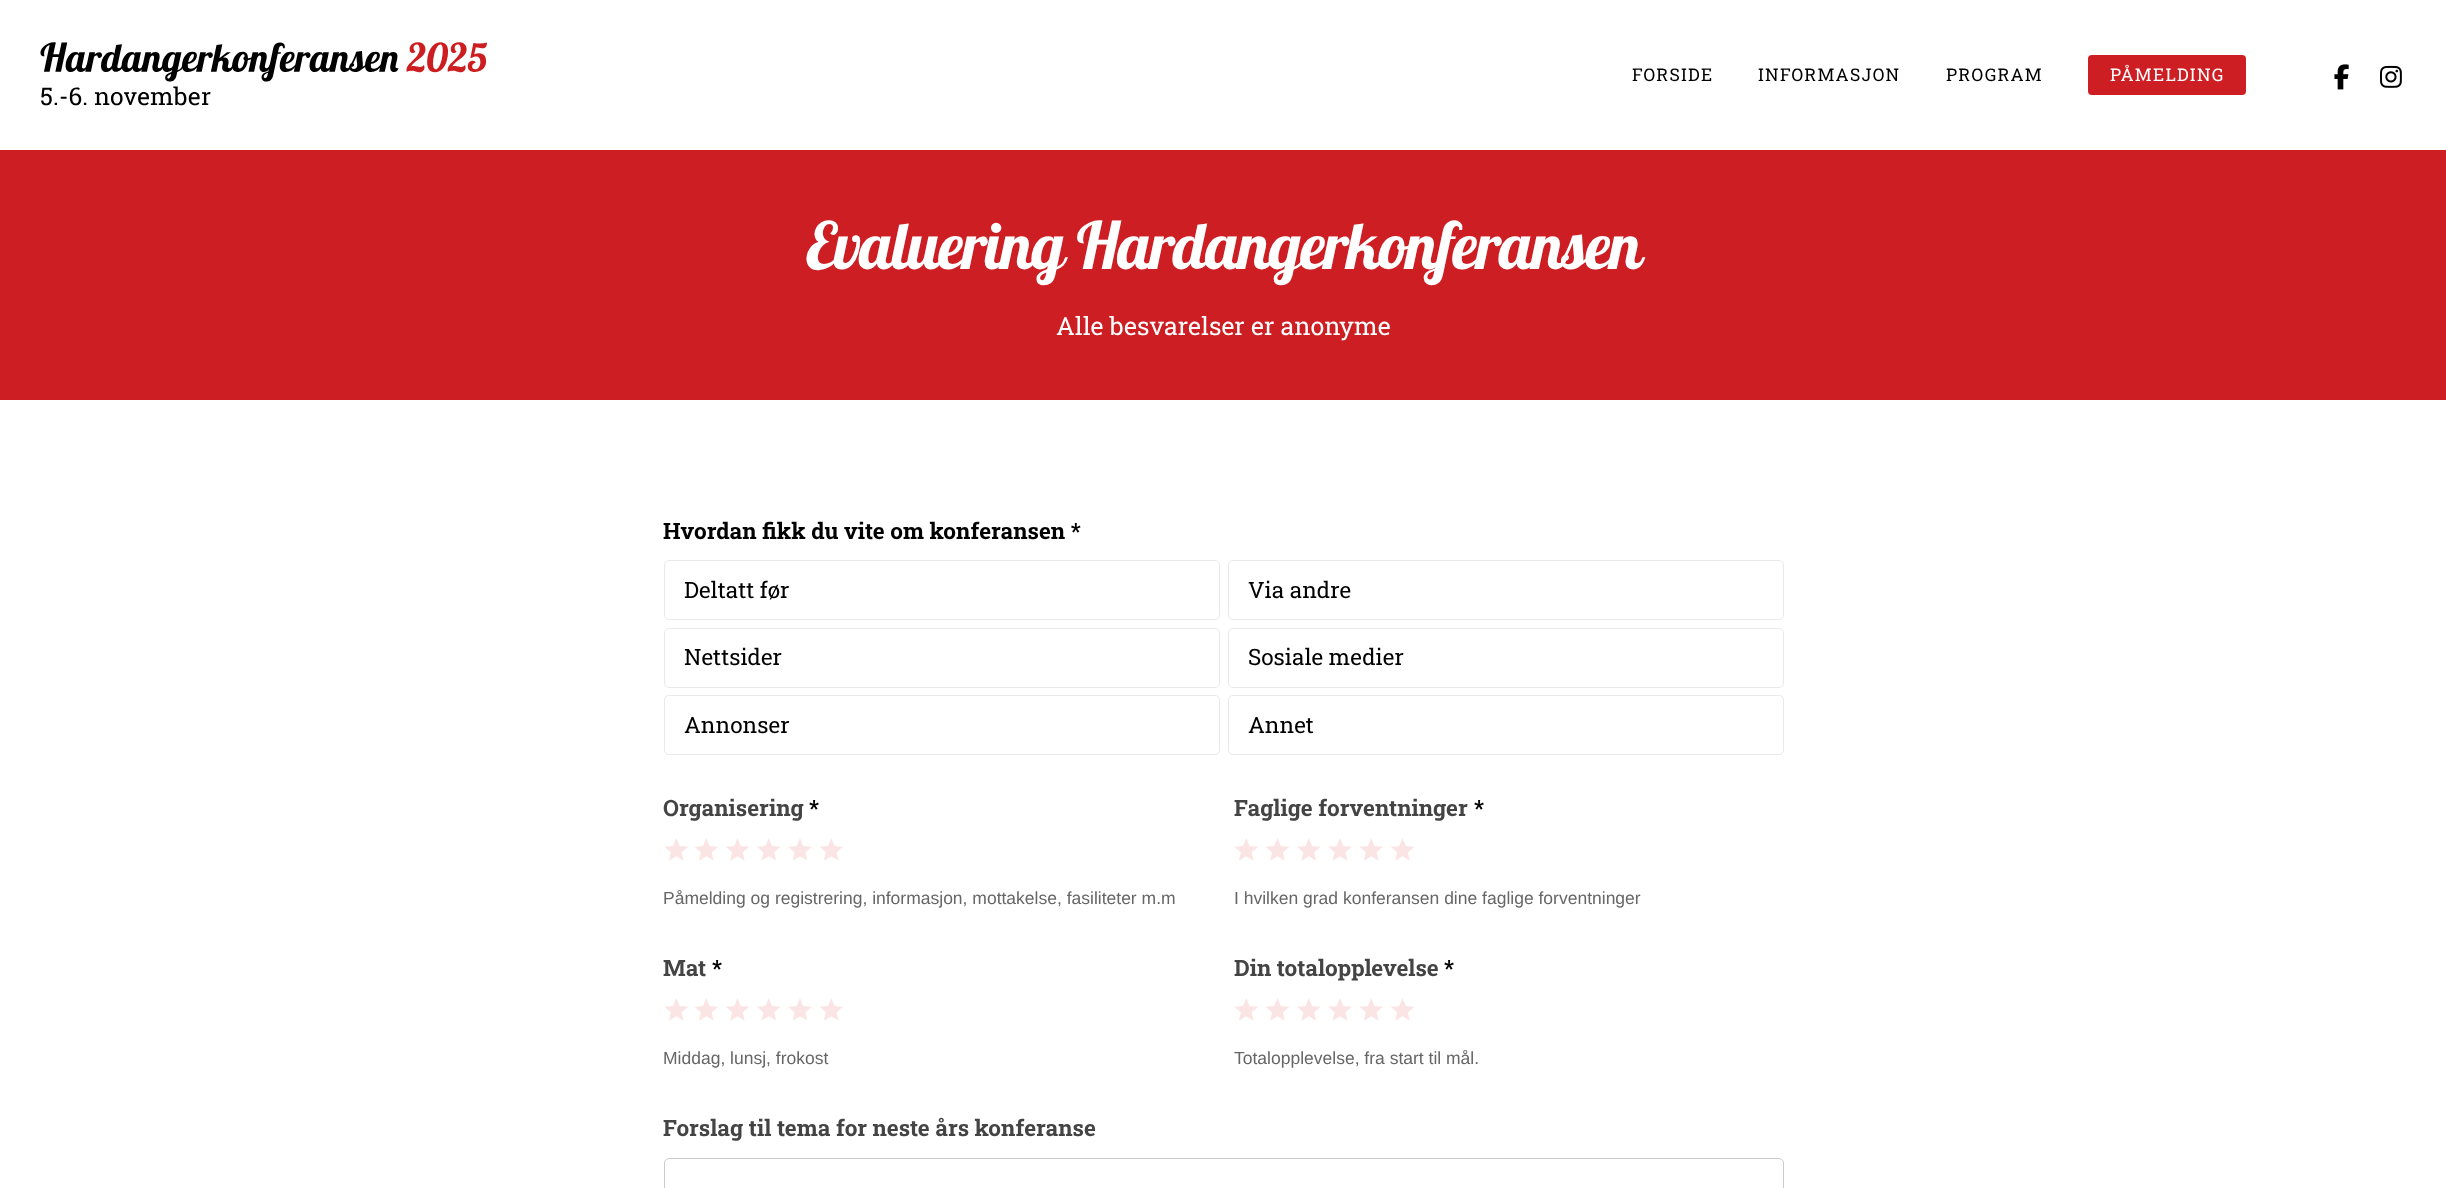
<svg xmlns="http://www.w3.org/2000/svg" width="2446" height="1188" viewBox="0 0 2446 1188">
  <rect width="100%" height="100%" fill="#fff"/>
  <image x="40" y="42" width="447" height="64" href="img/1.png"/>
  <rect x="2088" y="55" width="158" height="40" rx="4" fill="#cc1e23"/>
  <image x="2334" y="64" width="15" height="26" href="img/2.png"/>
  <image x="2380" y="65" width="22" height="23" href="img/3.png"/>
  <path d="M0 150h2446v250H0z" fill="#cc1e23"/>
  <rect x="664.5" y="560.5" width="555" height="59" rx="4.5" fill="none" stroke="#e9e9e9"/>
  <rect x="1228.5" y="560.5" width="555" height="59" rx="4.5" fill="none" stroke="#e9e9e9"/>
  <rect x="664.5" y="628.5" width="555" height="59" rx="4.5" fill="none" stroke="#e9e9e9"/>
  <rect x="1228.5" y="628.5" width="555" height="59" rx="4.5" fill="none" stroke="#e9e9e9"/>
  <rect x="664.5" y="695.5" width="555" height="59" rx="4.5" fill="none" stroke="#e9e9e9"/>
  <rect x="1228.5" y="695.5" width="555" height="59" rx="4.5" fill="none" stroke="#e9e9e9"/>
  <image x="665" y="838" width="23" height="23" href="img/4.png"/>
  <image x="695" y="838" width="23" height="23" href="img/4.png"/>
  <image x="726" y="838" width="23" height="23" href="img/5.png"/>
  <image x="757" y="838" width="23" height="23" href="img/6.png"/>
  <image x="788" y="838" width="24" height="23" href="img/7.png"/>
  <image x="820" y="838" width="23" height="23" href="img/4.png"/>
  <image x="1235" y="838" width="23" height="23" href="img/4.png"/>
  <image x="1266" y="838" width="23" height="23" href="img/5.png"/>
  <image x="1297" y="838" width="23" height="23" href="img/6.png"/>
  <image x="1328" y="838" width="24" height="23" href="img/7.png"/>
  <image x="1360" y="838" width="23" height="23" href="img/4.png"/>
  <image x="1391" y="838" width="23" height="23" href="img/5.png"/>
  <image x="665" y="998" width="23" height="23" href="img/4.png"/>
  <image x="695" y="998" width="23" height="23" href="img/4.png"/>
  <image x="726" y="998" width="23" height="23" href="img/5.png"/>
  <image x="757" y="998" width="23" height="23" href="img/6.png"/>
  <image x="788" y="998" width="24" height="23" href="img/7.png"/>
  <image x="820" y="998" width="23" height="23" href="img/4.png"/>
  <image x="1235" y="998" width="23" height="23" href="img/4.png"/>
  <image x="1266" y="998" width="23" height="23" href="img/5.png"/>
  <image x="1297" y="998" width="23" height="23" href="img/6.png"/>
  <image x="1328" y="998" width="24" height="23" href="img/7.png"/>
  <image x="1360" y="998" width="23" height="23" href="img/4.png"/>
  <image x="1391" y="998" width="23" height="23" href="img/5.png"/>
  <rect x="664.5" y="1158.5" width="1119" height="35" rx="4.5" fill="none" stroke="#ccc"/>
  <g font-family="Roboto Slab" font-size="17.5" letter-spacing="1.25" fill="#000">
    <text x="1632" y="81">FORSIDE</text>
    <text x="1758" y="81">INFORMASJON</text>
    <text x="1946" y="81">PROGRAM</text>
  </g>
  <text x="2110" y="81" font-family="Roboto Slab" font-size="17.5" letter-spacing="1.25" fill="#fff">PÅMELDING</text>
  <text x="806" y="269" font-family="Lobster" font-size="65" letter-spacing="-1.6" fill="#fff">Evaluering Hardangerkonferansen</text>
  <text x="1056" y="335" font-family="Roboto Slab" font-size="25" fill="#fff">Alle besvarelser er anonyme</text>
  <text x="663" y="539" font-family="Roboto Slab" font-size="22.5" font-weight="bold" fill="#000">Hvordan fikk du vite om konferansen *</text>
  <g font-family="Roboto Slab" font-size="22.5" fill="#000">
    <text x="684" y="598">Deltatt før</text>
    <text x="1248" y="598">Via andre</text>
    <text x="684" y="665">Nettsider</text>
    <text x="1248" y="665">Sosiale medier</text>
    <text x="684" y="733">Annonser</text>
    <text x="1248" y="733">Annet</text>
  </g>
  <text x="663" y="816" font-family="Roboto Slab" font-size="22.5" font-weight="bold" fill="#444">Organisering</text>
  <text x="809" y="816" font-family="Roboto Slab" font-size="22.5" font-weight="bold" fill="#000">*</text>
  <text x="663" y="904" font-family="Liberation Sans" font-size="17.5" fill="#666">Påmelding og registrering, informasjon, mottakelse, fasiliteter m.m</text>
  <text x="1234" y="816" font-family="Roboto Slab" font-size="22.5" font-weight="bold" fill="#444">Faglige forventninger</text>
  <text x="1474" y="816" font-family="Roboto Slab" font-size="22.5" font-weight="bold" fill="#000">*</text>
  <text x="1234" y="904" font-family="Liberation Sans" font-size="17.5" fill="#666">I hvilken grad konferansen dine faglige forventninger</text>
  <text x="663" y="976" font-family="Roboto Slab" font-size="22.5" font-weight="bold" fill="#444">Mat</text>
  <text x="712" y="976" font-family="Roboto Slab" font-size="22.5" font-weight="bold" fill="#000">*</text>
  <text x="663" y="1064" font-family="Liberation Sans" font-size="17.5" fill="#666">Middag, lunsj, frokost</text>
  <text x="1234" y="976" font-family="Roboto Slab" font-size="22.5" font-weight="bold" fill="#444">Din totalopplevelse</text>
  <text x="1444" y="976" font-family="Roboto Slab" font-size="22.5" font-weight="bold" fill="#000">*</text>
  <text x="1234" y="1064" font-family="Liberation Sans" font-size="17.5" fill="#666">Totalopplevelse, fra start til mål.</text>
  <text x="663" y="1136" font-family="Roboto Slab" font-size="22.5" font-weight="bold" fill="#444">Forslag til tema for neste års konferanse</text>
</svg>
